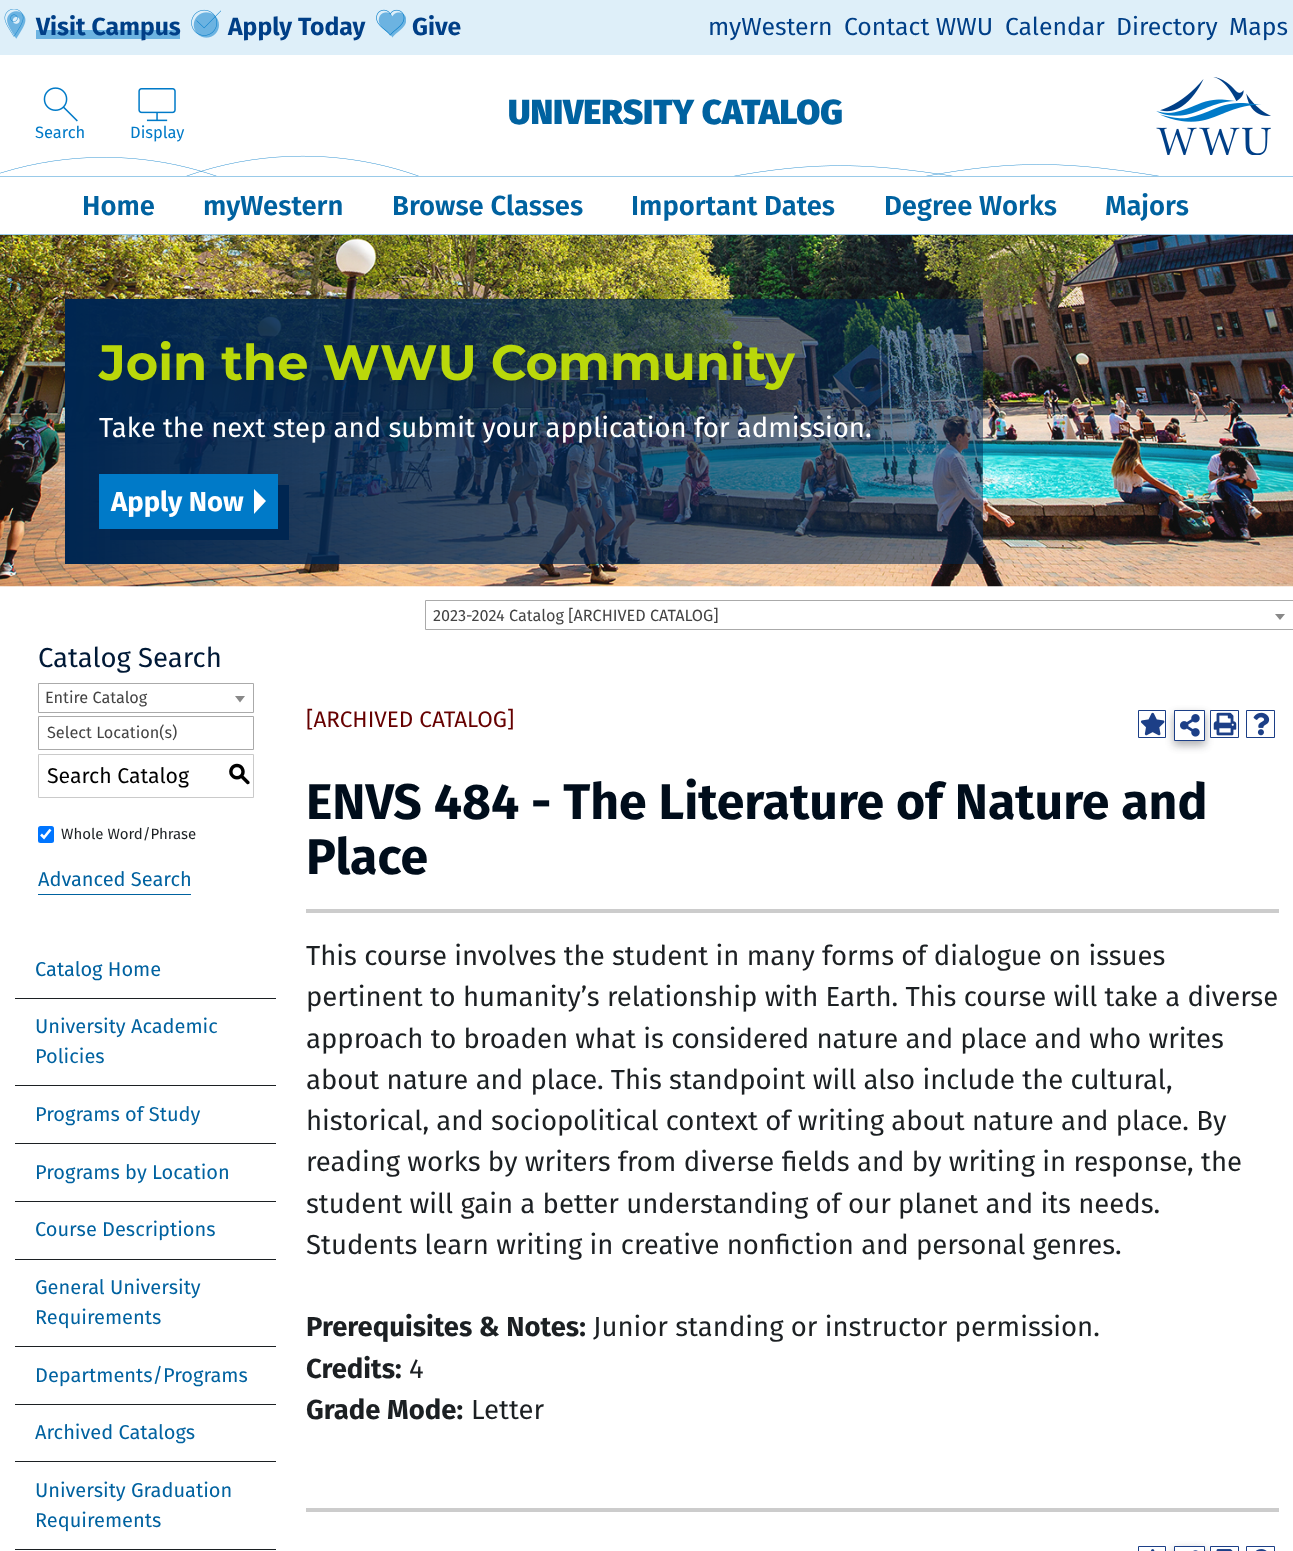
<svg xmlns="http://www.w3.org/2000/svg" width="1293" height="1551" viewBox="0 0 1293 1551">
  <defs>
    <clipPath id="clip1"><path d="M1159 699H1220V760H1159ZM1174 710H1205V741H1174Z" clip-rule="evenodd"/></clipPath>
  </defs>
  <rect width="100%" height="100%" fill="#fff"/>
  <image x="0" y="155" width="1159" height="21" href="img/1.png"/>
  <path d="M0 234h1293v1H0z" fill="#99cae9"/>
  <path d="M0 0h1293v55H0z" fill="#deeff9"/>
  <image x="4" y="9" width="22" height="30" href="img/2.png"/>
  <path d="M36 30h144v9H36z" fill="#6cb3e1"/>
  <image x="191" y="9" width="30" height="29" href="img/3.png"/>
  <image x="376" y="9" width="30" height="29" href="img/4.png"/>
  <image x="1156" y="77" width="115" height="78" href="img/5.png"/>
  <image x="43" y="87" width="35" height="35" href="img/6.png"/>
  <image x="138" y="88" width="38" height="34" href="img/7.png"/>
  <path d="M0 176h1293v1H0z" fill="#99cae9"/>
  <image x="0" y="235" width="1293" height="352" href="img/8.png"/>
  <path d="M110 529V540H289V485H278V529Z" fill="#002651"/>
  <path d="M99 474h179v55H99z" fill="#007ac8"/>
  <path d="M254 514V489L266 501Z" fill="#fff"/>
  <path d="M425.5 600.5h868v29H425.5z" fill="none" stroke="#aaa"/>
  <path d="M1275 614H1285L1280 620Z" fill="#888"/>
  <path d="M38.5 683.5h215v29H38.5z" fill="none" stroke="#aaa"/>
  <path d="M235 696H245L240 702.5Z" fill="#888"/>
  <path d="M38.5 716.5h215v33H38.5z" fill="none" stroke="#aaa"/>
  <path d="M38.5 754.5h215v43H38.5z" fill="none" stroke="#cacaca"/>
  <rect x="38" y="826" width="16" height="17" rx="2.5" fill="#0075ff"/>
  <path d="M41 834.5L44 837.5L50.5 829.5" fill="none" stroke="#fff" stroke-width="2.6"/>
  <path d="M38 894h153v1H38z" fill="#0062a0"/>
  <path d="M15 998h261v1H15z" fill="#1c2023"/>
  <path d="M15 1085h261v1H15z" fill="#1c2023"/>
  <path d="M15 1143h261v1H15z" fill="#1c2023"/>
  <path d="M15 1201h261v1H15z" fill="#1c2023"/>
  <path d="M15 1259h261v1H15z" fill="#1c2023"/>
  <path d="M15 1346h261v1H15z" fill="#1c2023"/>
  <path d="M15 1404h261v1H15z" fill="#1c2023"/>
  <path d="M15 1461h261v1H15z" fill="#1c2023"/>
  <path d="M15 1549h261v1H15z" fill="#1c2023"/>
  <path d="M1138.5 710.5h27v27H1138.5z" fill="none" stroke="#1c3f87"/>
  <image x="1140" y="712" width="25" height="24" href="img/9.png"/>
  <g clip-path="url(#clip1)">
    <path d="M1174 714h31v31H1174z" fill="#1c20233b" filter="blur(4.5px)"/>
    <path d="M1174 714h31v31H1174z" fill="#1c202329" filter="blur(4.5px)"/>
  </g>
  <path d="M1174.5 710.5h30v30H1174.5z" fill="none" stroke="#1c3f87"/>
  <image x="1180" y="714" width="20" height="23" href="img/10.png"/>
  <path d="M1211 713h3v24H1211z" fill="#fff"/>
  <path d="M1210.5 710.5h28v27H1210.5z" fill="none" stroke="#1c3f87"/>
  <image x="1213" y="712" width="24" height="24" href="img/11.png"/>
  <path d="M1246.5 710.5h28v27H1246.5z" fill="none" stroke="#1c3f87"/>
  <image x="1253" y="712" width="17" height="24" href="img/12.png"/>
  <path d="M306 909h973v4H306z" fill="#ccc"/>
  <path d="M306 1508h973v4H306z" fill="#ccc"/>
  <path d="M1138.5 1546.5h27v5H1138.5z" fill="none" stroke="#1c3f87"/>
  <image x="1150" y="1549" width="5" height="2" href="img/13.png"/>
  <path d="M1174 1550h31v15H1174z" fill="#1c20233b" filter="blur(4.5px)"/>
  <path d="M1174 1550h31v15H1174z" fill="#1c202329" filter="blur(4.5px)"/>
  <path d="M1174.5 1546.5h30v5H1174.5z" fill="#fff" stroke="#1c3f87"/>
  <image x="1193" y="1550" width="5" height="1" href="img/14.png"/>
  <path d="M1210 1547h2v4H1210z" fill="#fff"/>
  <path d="M1210.5 1546.5h28v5H1210.5z" fill="none" stroke="#1c3f87"/>
  <image x="1216" y="1549" width="17" height="2" href="img/15.png"/>
  <path d="M1246.5 1546.5h28v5H1246.5z" fill="none" stroke="#1c3f87"/>
  <image x="1256" y="1549" width="11" height="2" href="img/16.png"/>
  <g font-family="Fira Sans" font-size="24.75" font-weight="bold" fill="#003f87">
    <text x="36" y="35">Visit Campus</text>
    <text x="228" y="35">Apply Today</text>
    <text x="412" y="35">Give</text>
  </g>
  <g font-family="Fira Sans" font-size="24.75" fill="#003f87">
    <text x="708" y="35">myWestern</text>
    <text x="844" y="35">Contact WWU</text>
    <text x="1005" y="35">Calendar</text>
    <text x="1116" y="35">Directory</text>
    <text x="1229" y="35">Maps</text>
  </g>
  <text x="508" y="124" font-family="Fira Sans" font-size="34.75" font-weight="900" fill="#0062a0">UNIVERSITY CATALOG</text>
  <g font-family="Fira Sans" font-size="16.5" fill="#007ac8">
    <text x="35" y="138">Search</text>
    <text x="130" y="138">Display</text>
  </g>
  <g font-family="Fira Sans" font-size="27.5" font-weight="600" fill="#0062a0">
    <text x="82" y="215">Home</text>
    <text x="203" y="215">myWestern</text>
    <text x="392" y="215">Browse Classes</text>
    <text x="631" y="215">Important Dates</text>
    <text x="884" y="215">Degree Works</text>
    <text x="1105" y="215">Majors</text>
  </g>
  <text x="99" y="380" font-family="Montserrat" font-size="49.5" font-weight="bold" fill="#bad80a">Join the WWU Community</text>
  <text x="99" y="437" font-family="Fira Sans" font-size="27.5" fill="#fff">Take the next step and submit your application for admission.</text>
  <text x="111" y="511" font-family="Fira Sans" font-size="27.5" font-weight="bold" fill="#fff">Apply Now</text>
  <text x="433" y="621" font-family="Fira Sans" font-size="16.25" fill="#444">2023-2024 Catalog [ARCHIVED CATALOG]</text>
  <text x="38" y="667" font-family="Fira Sans" font-size="27.5" fill="#001936">Catalog Search</text>
  <g font-family="Fira Sans" font-size="16.25" fill="#444">
    <text x="45" y="703">Entire Catalog</text>
    <text x="47" y="738">Select Location(s)</text>
  </g>
  <text x="47" y="783" font-family="Fira Sans" font-size="21.25" fill="#000">Search Catalog</text>
  <text x="228" y="781" font-family="'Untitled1'" font-size="22.5" font-weight="500" fill="#000">S</text>
  <text x="61" y="839" font-family="Fira Sans" font-size="15" fill="#1c2023">Whole Word/Phrase</text>
  <g font-family="Fira Sans" font-size="20" fill="#0062a0">
    <text x="38" y="886">Advanced Search</text>
    <text x="35" y="976">Catalog Home</text>
    <text x="35" y="1033">University Academic</text>
    <text x="35" y="1063">Policies</text>
    <text x="35" y="1121">Programs of Study</text>
    <text x="35" y="1179">Programs by Location</text>
    <text x="35" y="1236">Course Descriptions</text>
    <text x="35" y="1294">General University</text>
    <text x="35" y="1324">Requirements</text>
    <text x="35" y="1382">Departments/Programs</text>
    <text x="35" y="1439">Archived Catalogs</text>
    <text x="35" y="1497">University Graduation</text>
    <text x="35" y="1527">Requirements</text>
  </g>
  <text x="306" y="727" font-family="Fira Sans" font-size="22.5" fill="#600">[ARCHIVED CATALOG]</text>
  <g font-family="Fira Sans" font-size="50" font-weight="bold" fill="#000d1b">
    <text x="306" y="819">ENVS 484 - The Literature of Nature and</text>
    <text x="306" y="874">Place</text>
  </g>
  <g font-family="Fira Sans" font-size="27.5" fill="#1c2023">
    <text x="306" y="965">This course involves the student in many forms of dialogue on issues</text>
    <text x="306" y="1006">pertinent to humanity’s relationship with Earth. This course will take a diverse</text>
    <text x="306" y="1048">approach to broaden what is considered nature and place and who writes</text>
    <text x="306" y="1089">about nature and place. This standpoint will also include the cultural,</text>
    <text x="306" y="1130">historical, and sociopolitical context of writing about nature and place. By</text>
    <text x="306" y="1171">reading works by writers from diverse fields and by writing in response, the</text>
    <text x="306" y="1213">student will gain a better understanding of our planet and its needs.</text>
    <text x="306" y="1254">Students learn writing in creative nonfiction and personal genres.</text>
  </g>
  <text x="306" y="1336" font-family="Fira Sans" font-size="27.5" font-weight="bold" fill="#1c2023">Prerequisites &amp; Notes:</text>
  <text x="593" y="1336" font-family="Fira Sans" font-size="27.5" fill="#1c2023">Junior standing or instructor permission.</text>
  <text x="306" y="1378" font-family="Fira Sans" font-size="27.5" font-weight="bold" fill="#1c2023">Credits:</text>
  <text x="409" y="1378" font-family="Fira Sans" font-size="27.5" fill="#1c2023">4</text>
  <text x="306" y="1419" font-family="Fira Sans" font-size="27.5" font-weight="bold" fill="#1c2023">Grade Mode:</text>
  <text x="471" y="1419" font-family="Fira Sans" font-size="27.5" fill="#1c2023">Letter</text>
</svg>
